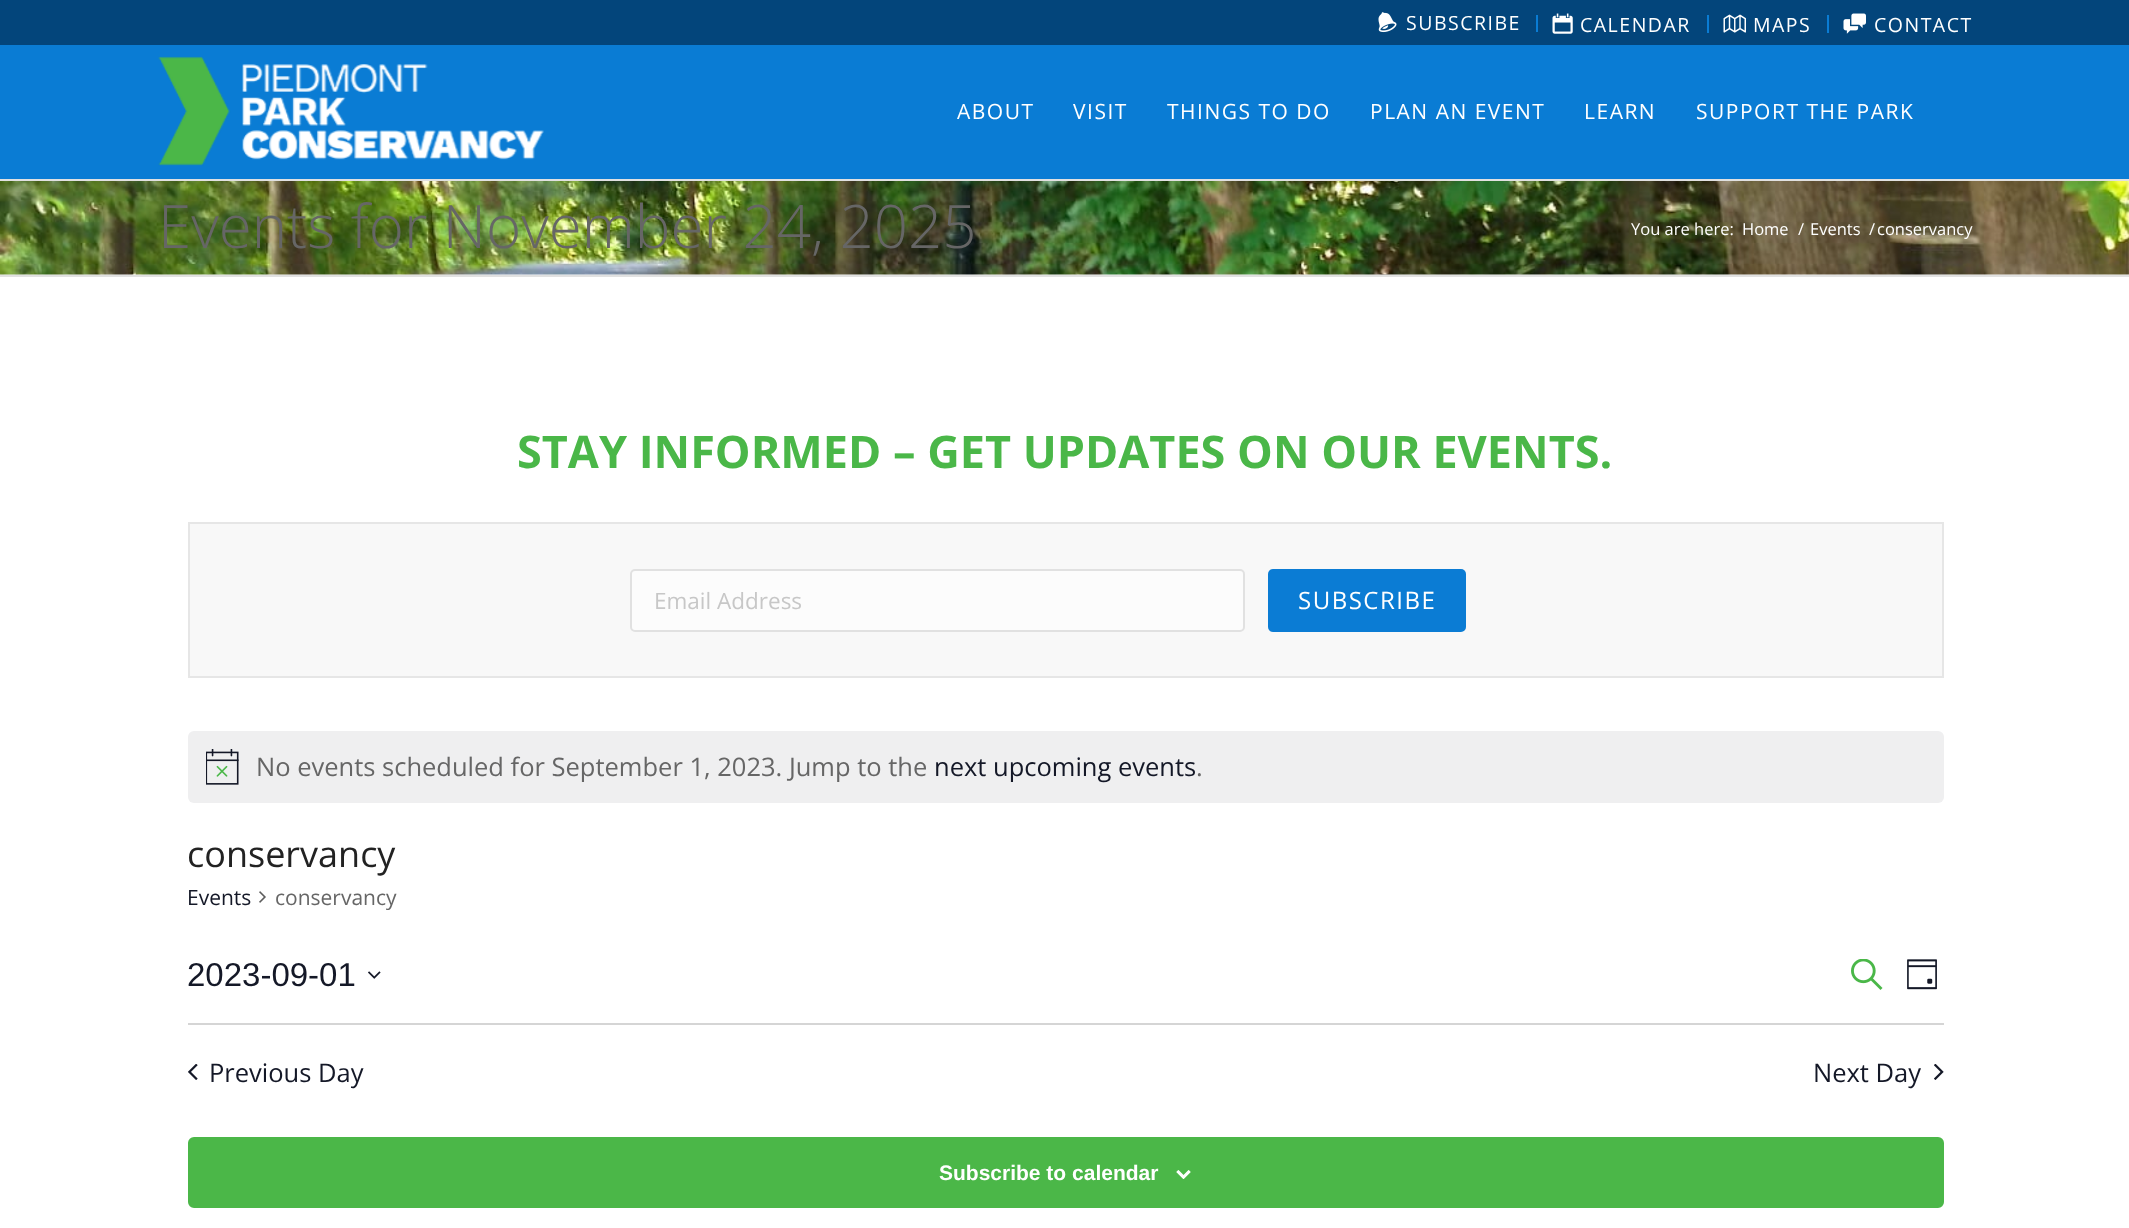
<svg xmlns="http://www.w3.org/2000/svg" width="2129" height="1228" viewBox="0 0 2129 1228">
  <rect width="100%" height="100%" fill="#0a7cd4"/>
  <path d="M0 0h2129v45H0z" fill="#03457b"/>
  <path d="M1536 15h2v17H1536z" fill="#0a7cd4"/>
  <image x="1378" y="12" width="19" height="21" href="img/1.png"/>
  <path d="M1707 15h2v18H1707z" fill="#0a7cd4"/>
  <image x="1552" y="13" width="21" height="21" href="img/2.png"/>
  <path d="M1827 15h2v18H1827z" fill="#0a7cd4"/>
  <image x="1723" y="14" width="23" height="19" href="img/3.png"/>
  <image x="1843" y="13" width="23" height="21" href="img/4.png"/>
  <image x="158" y="56" width="386" height="110" href="img/5.png"/>
  <path d="M0 274h2129v1H0z" fill="#f8f8f8"/>
  <image x="0" y="181" width="2129" height="94" href="img/6.png"/>
  <path d="M0 179h2129v2H0z" fill="#e1e1e1"/>
  <path d="M0 277h2129v951H0z" fill="#fff"/>
  <path d="M0 275h2129v2H0z" fill="#e1e1e1"/>
  <path d="M189 523h1754v154H189z" fill="#f8f8f8" stroke="#e6e6e6" stroke-width="2"/>
  <rect x="631" y="570" width="613" height="61" rx="4" fill="#fcfcfc" stroke="#e1e1e1" stroke-width="2"/>
  <rect x="1268" y="569" width="198" height="63" rx="5" fill="#0b7cd4"/>
  <rect x="188" y="731" width="1756" height="72" rx="6" fill="#efeff0"/>
  <image x="206" y="749" width="33" height="36" href="img/7.png"/>
  <image x="259" y="891" width="7" height="12" href="img/8.png"/>
  <image x="368" y="971" width="13" height="8" href="img/9.png"/>
  <image x="1851" y="959" width="32" height="31" href="img/10.png"/>
  <image x="1907" y="959" width="30" height="31" href="img/11.png"/>
  <path d="M188 1023h1756v2H188z" fill="#d5d5d5"/>
  <image x="188" y="1064" width="10" height="16" href="img/12.png"/>
  <image x="1934" y="1064" width="10" height="16" href="img/13.png"/>
  <rect x="189" y="1138" width="1754" height="69" rx="5" fill="#4bb748" stroke="#4bb748" stroke-width="2"/>
  <image x="1176" y="1170" width="15" height="9" href="img/14.png"/>
  <g font-family="Open Sans" font-size="19.5" letter-spacing="1.5" fill="#fff">
    <text x="1406" y="30">SUBSCRIBE</text>
    <text x="1580" y="32">CALENDAR</text>
    <text x="1753" y="32">MAPS</text>
    <text x="1874" y="32">CONTACT</text>
  </g>
  <g font-family="Open Sans" font-size="21" letter-spacing="1.5" fill="#fff">
    <text x="957" y="119">ABOUT</text>
    <text x="1073" y="119">VISIT</text>
    <text x="1167" y="119">THINGS TO DO</text>
    <text x="1370" y="119">PLAN AN EVENT</text>
    <text x="1584" y="119">LEARN</text>
    <text x="1696" y="119">SUPPORT THE PARK</text>
  </g>
  <text x="158" y="248" font-family="Open Sans" font-size="60" font-weight="300" fill="#666">Events for November 24, 2025</text>
  <g font-family="Open Sans" font-size="16.5" fill="#fff">
    <text x="1631" y="235">You are here:</text>
    <text x="1742" y="235">Home</text>
    <text x="1798" y="235">/</text>
    <text x="1810" y="235">Events</text>
    <text x="1869" y="235">/</text>
    <text x="1877" y="235">conservancy</text>
  </g>
  <text x="517" y="468" font-family="Open Sans" font-size="45" font-weight="bold" fill="#4ab748">STAY INFORMED – GET UPDATES ON OUR EVENTS.</text>
  <text x="654" y="609" font-family="Open Sans" font-size="22.5" fill="#c7c7c7">Email Address</text>
  <text x="1298" y="609" font-family="Open Sans" font-size="24" letter-spacing="1.5" fill="#fff">SUBSCRIBE</text>
  <text x="256" y="776" font-family="Open Sans" font-size="25.5" fill="#666">No events scheduled for September 1, 2023. Jump to the</text>
  <text x="934" y="776" font-family="Open Sans" font-size="25.5" fill="#141827">next upcoming events</text>
  <text x="1196" y="776" font-family="Open Sans" font-size="25.5" fill="#666">.</text>
  <text x="187" y="867" font-family="Open Sans" font-size="36" fill="#222">conservancy</text>
  <text x="187" y="905" font-family="Open Sans" font-size="21" fill="#141827">Events</text>
  <text x="275" y="905" font-family="Open Sans" font-size="21" fill="#666">conservancy</text>
  <text x="187" y="986" font-family="Liberation Sans" font-size="33" fill="#141827">2023-09-01</text>
  <g font-family="Open Sans" font-size="25.5" fill="#141827">
    <text x="209" y="1082">Previous Day</text>
    <text x="1813" y="1082">Next Day</text>
  </g>
  <text x="939" y="1180" font-family="Liberation Sans" font-size="21" font-weight="bold" fill="#fff">Subscribe to calendar</text>
</svg>
